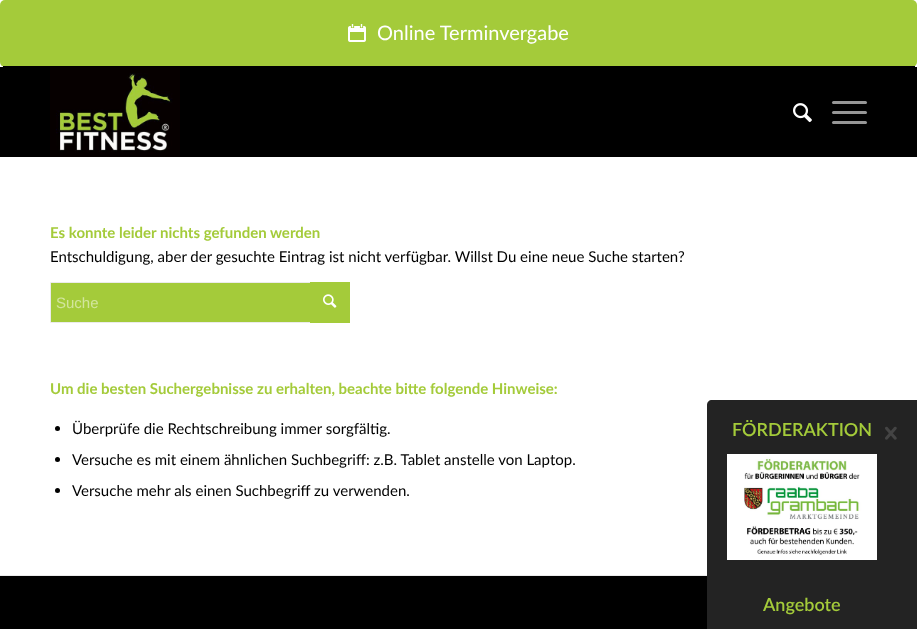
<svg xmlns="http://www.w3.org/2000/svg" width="917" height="629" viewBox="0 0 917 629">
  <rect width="100%" height="100%" fill="#fff"/>
  <rect width="917" height="67" rx="5" fill="#a4cb3a"/>
  <path d="M3 66h912v1H3z" fill="#000"/>
  <image x="348" y="24" width="18" height="18" href="img/1.png"/>
  <path d="M0 67h917v90H0z" fill="#000"/>
  <image x="50" y="67" width="130" height="90" href="img/2.png"/>
  <image x="793" y="103" width="19" height="20" href="img/3.png"/>
  <rect x="832" y="111" width="35" height="3" rx="1.5" fill="#969696"/>
  <rect x="832" y="101" width="35" height="3" rx="1.5" fill="#969696"/>
  <rect x="832" y="121" width="35" height="3" rx="1.5" fill="#969696"/>
  <path d="M0 576h707v53H0z" fill="#000"/>
  <path d="M51 283h259v39H51z" fill="#a4cb3a"/>
  <path d="M50.5 282.5h299v40H50.5z" fill="none" stroke="#ebebeb"/>
  <path d="M310 282h40v41H310z" fill="#a4cb3a"/>
  <image x="323" y="294" width="14" height="14" href="img/4.png"/>
  <circle cx="57.5" cy="428.5" r="2.5" fill="#000"/>
  <circle cx="57.5" cy="459.5" r="2.5" fill="#000"/>
  <circle cx="57.5" cy="490.5" r="2.5" fill="#000"/>
  <path d="M0 575h707v1H0z" fill="#ebebeb"/>
  <path d="M712 400H917V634H712C709 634 707 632 707 629V405C707 402 709 400 712 400Z" fill="#232323"/>
  <image x="727" y="454" width="150" height="106" href="img/5.png"/>
  <image x="885" y="426" width="12" height="14" href="img/6.png"/>
  <text x="377" y="40" font-family="Lato" font-size="20" fill="#fff">Online Terminvergabe</text>
  <text x="50" y="238" font-family="Lato" font-size="15" font-weight="bold" fill="#a4cb3a">Es konnte leider nichts gefunden werden</text>
  <text x="50" y="262" font-family="Lato" font-size="15" fill="#000">Entschuldigung, aber der gesuchte Eintrag ist nicht verfügbar. Willst Du eine neue Suche starten?</text>
  <text x="56" y="308" font-family="Liberation Sans" font-size="15" fill="#d2e59d">Suche</text>
  <text x="50" y="394" font-family="Lato" font-size="15" font-weight="bold" fill="#a4cb3a">Um die besten Suchergebnisse zu erhalten, beachte bitte folgende Hinweise:</text>
  <g font-family="Lato" font-size="15" fill="#000">
    <text x="72" y="434">Überprüfe die Rechtschreibung immer sorgfältig.</text>
    <text x="72" y="465">Versuche es mit einem ähnlichen Suchbegriff: z.B. Tablet anstelle von Laptop.</text>
    <text x="72" y="496">Versuche mehr als einen Suchbegriff zu verwenden.</text>
  </g>
  <g font-family="Lato" font-size="18" font-weight="600" fill="#a4cb3a">
    <text x="732" y="436">FÖRDERAKTION</text>
    <text x="763" y="611">Angebote</text>
  </g>
</svg>
